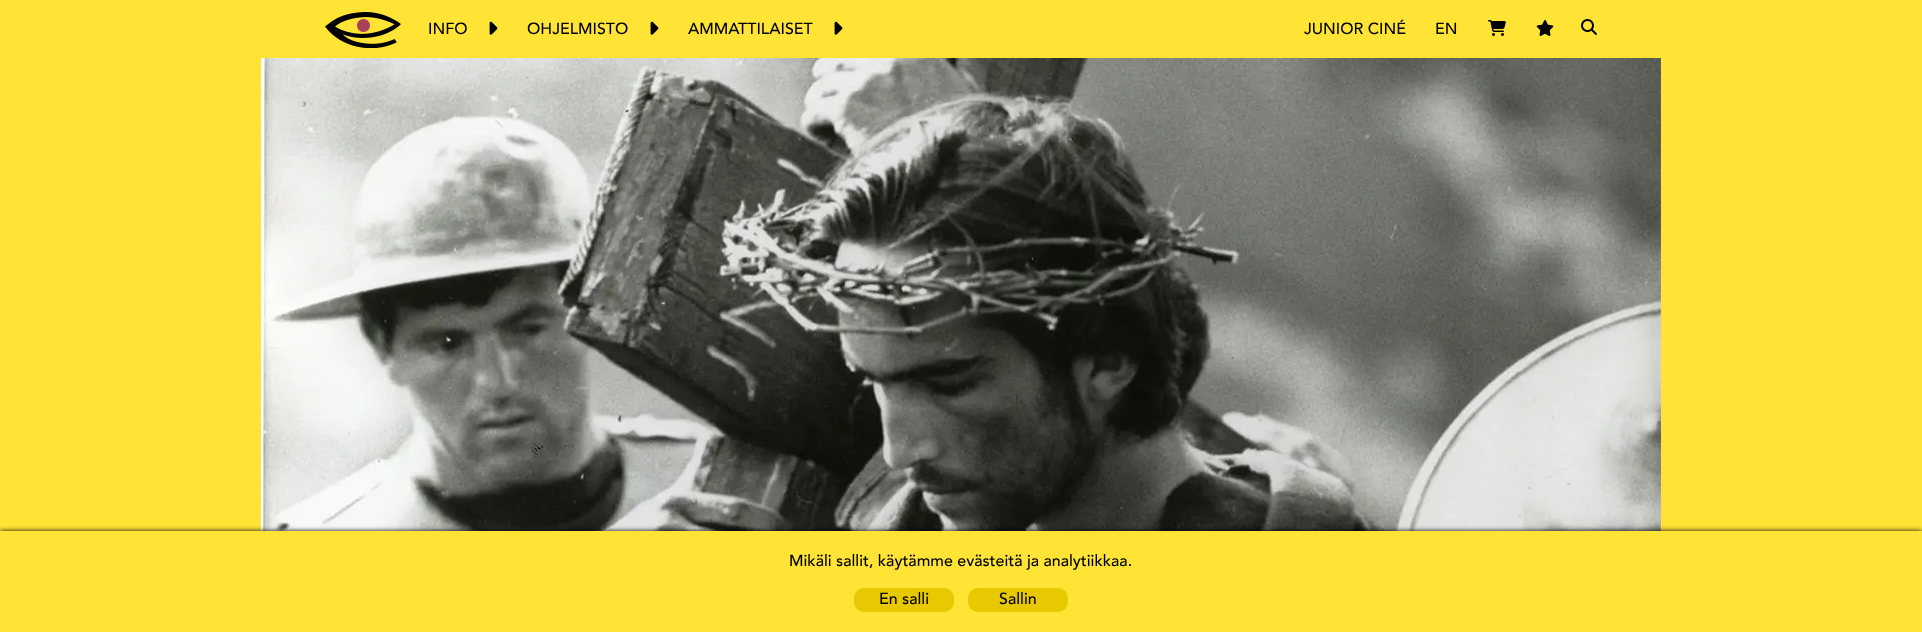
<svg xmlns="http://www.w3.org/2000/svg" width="1922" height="632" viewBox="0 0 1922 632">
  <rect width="100%" height="100%" fill="#ffe436"/>
  <image x="325" y="12" width="76" height="36" href="img/1.png"/>
  <image x="489" y="21" width="9" height="14" href="img/2.png"/>
  <image x="650" y="21" width="9" height="14" href="img/2.png"/>
  <image x="834" y="21" width="9" height="14" href="img/2.png"/>
  <image x="1488" y="20" width="18" height="16" href="img/3.png"/>
  <image x="1536" y="20" width="18" height="16" href="img/4.png"/>
  <image x="1581" y="19" width="16" height="16" href="img/5.png"/>
  <image x="261" y="58" width="1400" height="473" href="img/6.png"/>
  <path d="M0 531h1922v101H0z" fill="#000" filter="blur(2.5px)"/>
  <path d="M0 531h1922v101H0z" fill="#ffe436"/>
  <rect x="854" y="588" width="100" height="24" rx="10" fill="#e7c801"/>
  <rect x="968" y="588" width="100" height="24" rx="10" fill="#e7c801"/>
  <g font-family="Avenir" font-size="16" font-weight="500" fill="#000">
    <text x="428" y="34">INFO</text>
    <text x="527" y="34">OHJELMISTO</text>
    <text x="688" y="34">AMMATTILAISET</text>
    <text x="1304" y="34">JUNIOR CINÉ</text>
    <text x="1435" y="34">EN</text>
    <text x="789" y="566">Mikäli sallit, käytämme evästeitä ja analytiikkaa.</text>
    <text x="879" y="604">En salli</text>
    <text x="999" y="604">Sallin</text>
  </g>
</svg>
